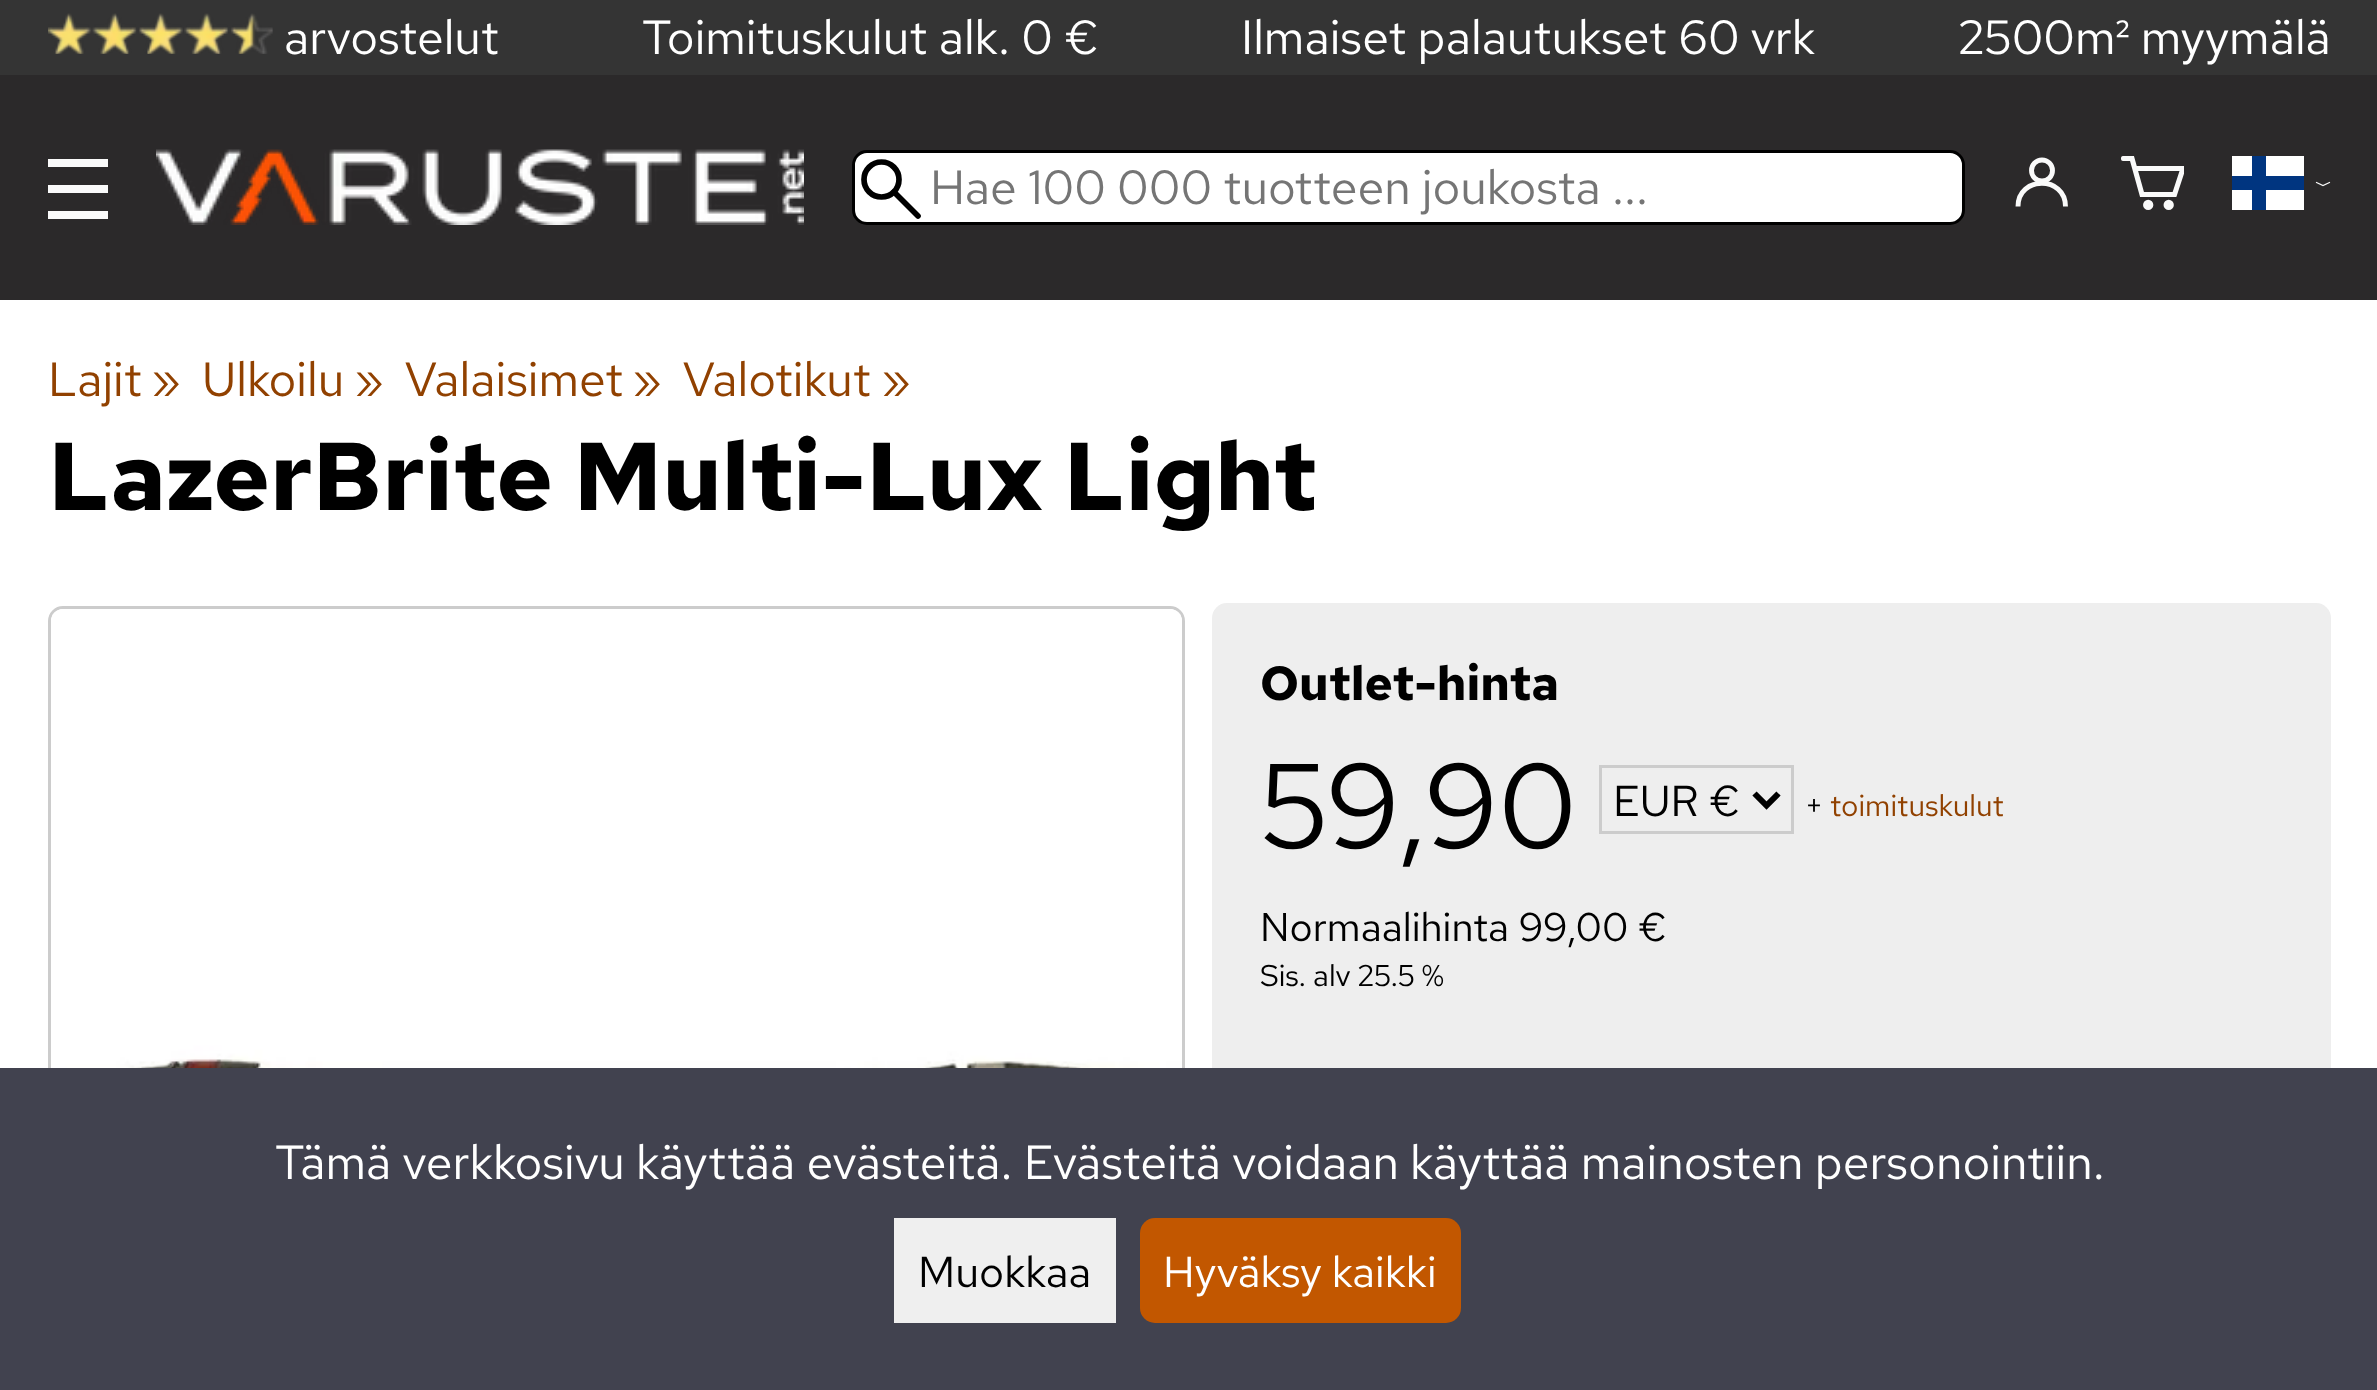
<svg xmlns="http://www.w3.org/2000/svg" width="2377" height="1390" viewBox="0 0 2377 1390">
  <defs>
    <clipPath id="clip1"><path d="M2121 156h63v54H2121z"/></clipPath>
  </defs>
  <rect width="100%" height="100%" fill="#fff"/>
  <path d="M0 0h2377v75H0z" fill="#343434"/>
  <image x="48" y="13" width="225" height="41" href="img/1.png"/>
  <path d="M0 75h2377v225H0z" fill="#2b292a"/>
  <path d="M48 159h60v8H48z" fill="#fafafa"/>
  <path d="M48 211h60v8H48z" fill="#fafafa"/>
  <path d="M48 185h60v8H48z" fill="#fafafa"/>
  <image x="156" y="149" width="648" height="76" href="img/2.png"/>
  <rect x="853.5" y="151.5" width="1110" height="72" rx="13.5" fill="#fff" stroke="#000" stroke-width="3"/>
  <path d="M918 216L894 192" fill="none" stroke="#000" stroke-width="5.7" stroke-linecap="round"/>
  <circle cx="881.5" cy="179.5" r="17.5" fill="none" stroke="#000" stroke-width="5.7"/>
  <circle cx="2042" cy="170.5" r="10.5" fill="none" stroke="#fafafa" stroke-width="4.9"/>
  <path d="M2018 206.5C2018 175.5 2065.5 175.5 2065.5 206.5" fill="none" stroke="#fafafa" stroke-width="4.9"/>
  <g clip-path="url(#clip1)">
    <path d="M2135 168.5H2183L2174.5 194.5H2142L2132 158.5H2123.5" fill="none" stroke="#fafafa" stroke-width="5.1" stroke-linecap="round"/>
  </g>
  <circle cx="2148.2" cy="204.9" r="2.6" fill="none" stroke="#fafafa" stroke-width="5.1"/>
  <circle cx="2168.7" cy="204.9" r="2.6" fill="none" stroke="#fafafa" stroke-width="5.1"/>
  <path d="M2232 156h72v54H2232z" fill="#fff"/>
  <path d="M2232 176h72v14H2232z" fill="#003580"/>
  <path d="M2252 156h14v54H2252z" fill="#003580"/>
  <path d="M2316.5 182.5L2323 185.5L2329.5 182.5" fill="none" stroke="#fafafa" stroke-width="1.3" stroke-linecap="round"/>
  <rect x="49.5" y="607.5" width="1134" height="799" rx="13.5" fill="none" stroke="#ccc" stroke-width="3"/>
  <image x="51" y="609" width="1131" height="459" href="img/3.png"/>
  <rect x="1212" y="603" width="1119" height="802" rx="15" fill="#eee"/>
  <path d="M1600.5 766.5h192v66H1600.5z" fill="none" stroke="#ccc" stroke-width="3"/>
  <path d="M1754.5 793.5L1766.5 805.5L1778.5 793.5" fill="none" stroke="#000" stroke-width="6"/>
  <path d="M0 1068h2377v322H0z" fill="#41424f"/>
  <path d="M894 1218h222v105H894z" fill="#efefef"/>
  <rect x="1140" y="1218" width="321" height="105" rx="15" fill="#c25700"/>
  <g font-family="Red Hat Text" font-size="48" fill="#fff">
    <text x="284" y="54">arvostelut</text>
    <text x="642" y="54">Toimituskulut alk. 0 €</text>
    <text x="1241" y="54">Ilmaiset palautukset 60 vrk</text>
    <text x="1958" y="54">2500m² myymälä</text>
  </g>
  <text x="930" y="204" font-family="Red Hat Text" font-size="48" fill="#757575">Hae 100 000 tuotteen joukosta ...</text>
  <g font-family="Red Hat Text" font-size="48" fill="#914100">
    <text x="48" y="396">Lajit</text>
    <text x="151" y="396">»</text>
    <text x="202" y="396">Ulkoilu</text>
    <text x="354" y="396">»</text>
    <text x="405" y="396">Valaisimet</text>
    <text x="632" y="396">»</text>
    <text x="683" y="396">Valotikut</text>
    <text x="881" y="396">»</text>
  </g>
  <text x="48" y="510" font-family="Red Hat Text" font-size="96" font-weight="bold" fill="#000">LazerBrite Multi-Lux Light</text>
  <text x="1260" y="700" font-family="Red Hat Text" font-size="48" font-weight="bold" fill="#000">Outlet-hinta</text>
  <text x="1260" y="848" font-family="Red Hat Text" font-size="120" fill="#000">59,90</text>
  <text x="1613" y="816" font-family="Red Hat Text" font-size="43.25" fill="#000">EUR €</text>
  <text x="1805" y="816" font-family="Red Hat Text" font-size="30" fill="#000">+</text>
  <text x="1830" y="816" font-family="Red Hat Text" font-size="30" fill="#914100">toimituskulut</text>
  <text x="1260" y="941" font-family="Red Hat Text" font-size="40" fill="#000">Normaalihinta 99,00 €</text>
  <text x="1260" y="986" font-family="Red Hat Text" font-size="30" fill="#000">Sis. alv 25.5 %</text>
  <text x="275" y="1179" font-family="Red Hat Text" font-size="48" fill="#fff">Tämä verkkosivu käyttää evästeitä. Evästeitä voidaan käyttää mainosten personointiin.</text>
  <text x="918" y="1287" font-family="Red Hat Text" font-size="43.25" fill="#000">Muokkaa</text>
  <text x="1163" y="1287" font-family="Red Hat Text" font-size="43.25" fill="#fff">Hyväksy kaikki</text>
</svg>
